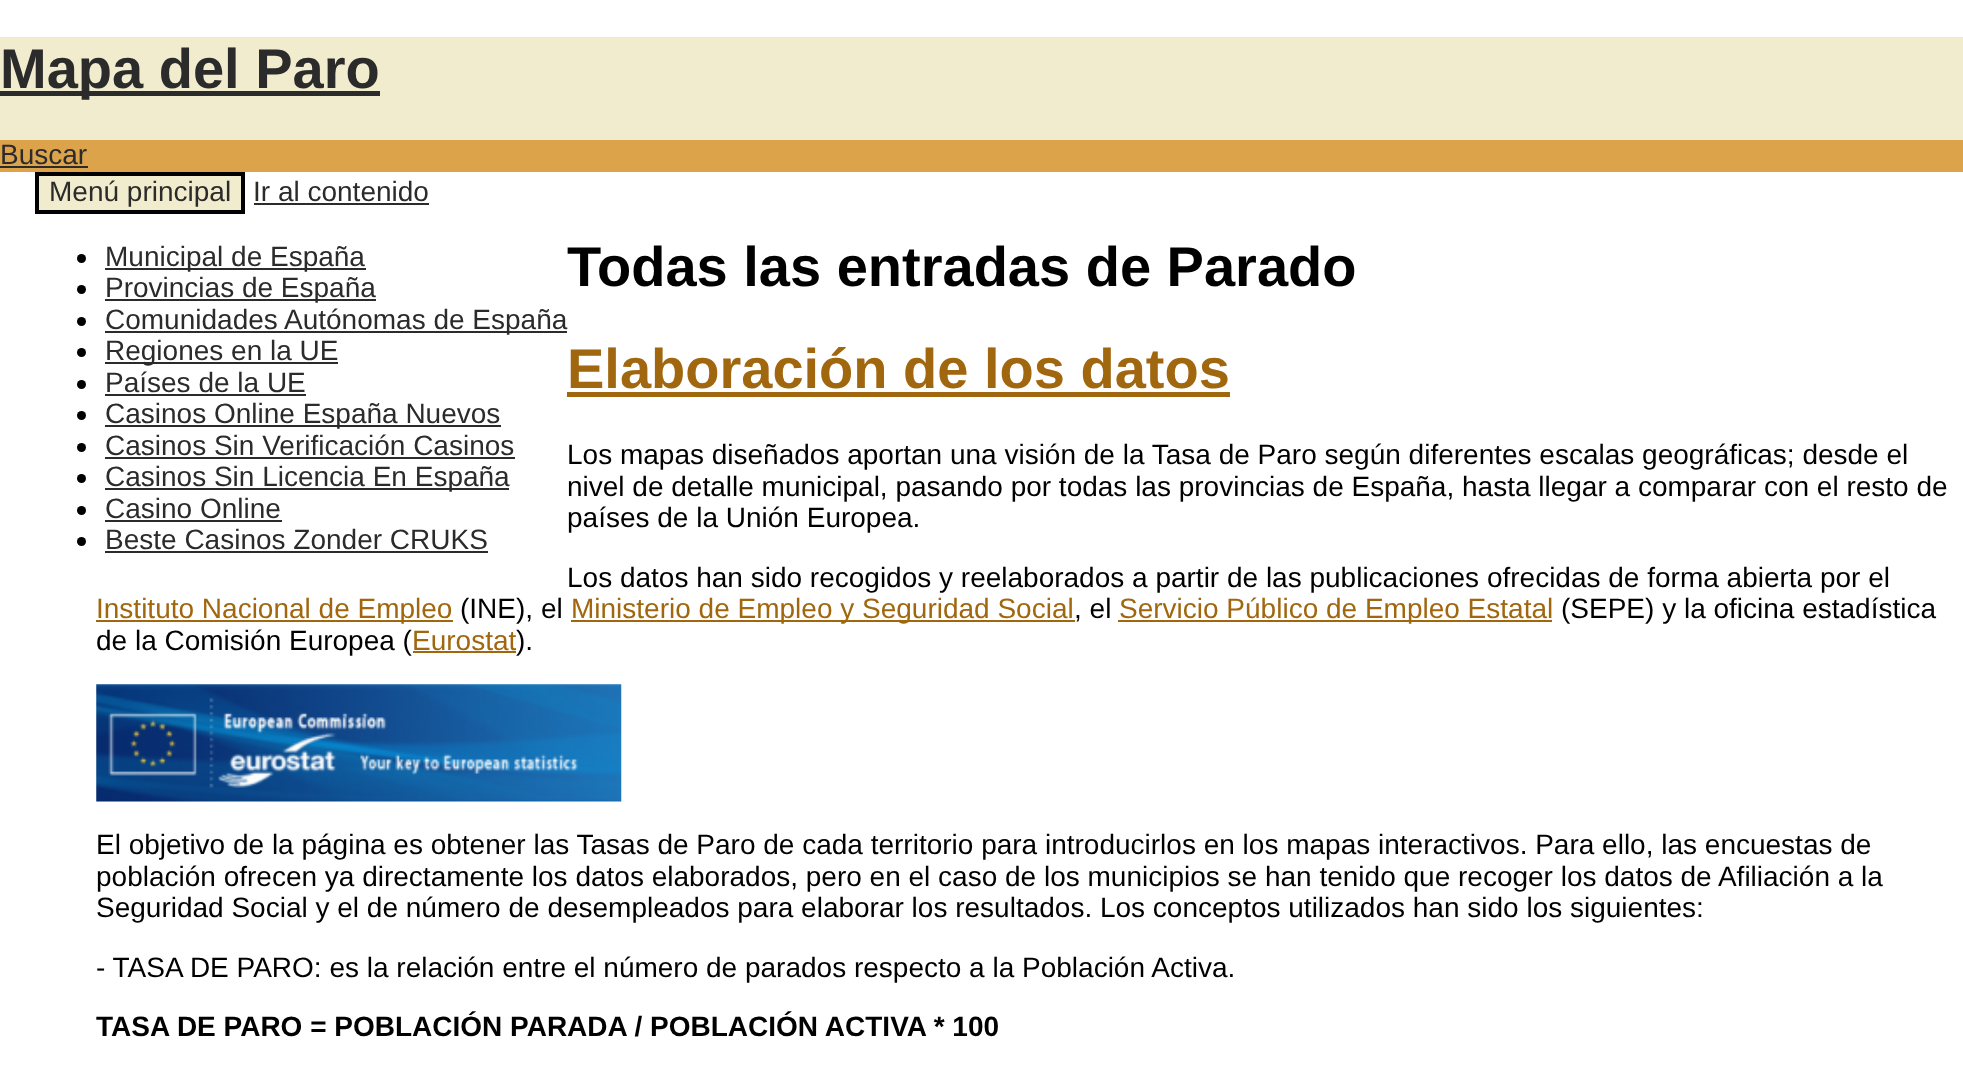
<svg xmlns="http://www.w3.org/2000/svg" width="1963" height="1073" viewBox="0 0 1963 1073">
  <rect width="100%" height="100%" fill="#fff"/>
  <path d="M0 37h1963v103H0z" fill="#f0eccd"/>
  <path d="M0 91h380v5H0z" fill="#2b2b2b"/>
  <path d="M0 140h1963v32H0z" fill="#dda34b"/>
  <path d="M0 166h88v2H0z" fill="#2b2b2b"/>
  <path d="M37 174h206v38H37z" fill="#f0eccd" stroke="#000" stroke-width="4"/>
  <path d="M254 203h175v2H254z" fill="#2b2b2b"/>
  <circle cx="81.5" cy="258.5" r="4.5" fill="#000"/>
  <path d="M105 268h261v2H105z" fill="#2b2b2b"/>
  <circle cx="81.5" cy="289.5" r="4.5" fill="#000"/>
  <path d="M105 299h271v2H105z" fill="#2b2b2b"/>
  <circle cx="81.5" cy="321.5" r="4.5" fill="#000"/>
  <path d="M105 331h462v2H105z" fill="#2b2b2b"/>
  <circle cx="81.5" cy="352.5" r="4.5" fill="#000"/>
  <path d="M105 362h233v2H105z" fill="#2b2b2b"/>
  <circle cx="81.5" cy="384.5" r="4.5" fill="#000"/>
  <path d="M105 394h201v2H105z" fill="#2b2b2b"/>
  <circle cx="81.5" cy="415.5" r="4.5" fill="#000"/>
  <path d="M105 425h396v2H105z" fill="#2b2b2b"/>
  <circle cx="81.5" cy="447.5" r="4.5" fill="#000"/>
  <path d="M105 457h410v2H105z" fill="#2b2b2b"/>
  <circle cx="81.5" cy="478.5" r="4.5" fill="#000"/>
  <path d="M105 488h404v2H105z" fill="#2b2b2b"/>
  <circle cx="81.5" cy="510.5" r="4.5" fill="#000"/>
  <path d="M105 520h177v2H105z" fill="#2b2b2b"/>
  <circle cx="81.5" cy="541.5" r="4.5" fill="#000"/>
  <path d="M105 551h383v2H105z" fill="#2b2b2b"/>
  <path d="M567 392h663v5H567z" fill="#a1670f"/>
  <path d="M96 620h357v2H96z" fill="#a1670f"/>
  <path d="M571 620h504v2H571z" fill="#a1670f"/>
  <path d="M1118 620h434v2H1118z" fill="#a1670f"/>
  <path d="M413 651h103v2H413z" fill="#a1670f"/>
  <image x="96" y="684" width="526" height="118" href="img/1.png"/>
  <text x="0" y="88" font-family="Liberation Sans" font-size="56" font-weight="bold" fill="#2b2b2b">Mapa del Paro</text>
  <g font-family="Liberation Sans" font-size="28" fill="#2b2b2b">
    <text x="0" y="164">Buscar</text>
    <text x="49" y="201">Menú principal</text>
    <text x="253" y="201">Ir al contenido</text>
    <text x="105" y="266">Municipal de España</text>
    <text x="105" y="297">Provincias de España</text>
    <text x="105" y="329">Comunidades Autónomas de España</text>
    <text x="105" y="360">Regiones en la UE</text>
    <text x="105" y="392">Países de la UE</text>
    <text x="105" y="423">Casinos Online España Nuevos</text>
    <text x="105" y="455">Casinos Sin Verificación Casinos</text>
    <text x="105" y="486">Casinos Sin Licencia En España</text>
    <text x="105" y="518">Casino Online</text>
    <text x="105" y="549">Beste Casinos Zonder CRUKS</text>
  </g>
  <text x="567" y="286" font-family="Liberation Sans" font-size="56" font-weight="bold" fill="#000">Todas las entradas de Parado</text>
  <text x="567" y="388" font-family="Liberation Sans" font-size="56" font-weight="bold" fill="#a1670f">Elaboración de los datos</text>
  <g font-family="Liberation Sans" font-size="28" fill="#000">
    <text x="567" y="464">Los mapas diseñados aportan una visión de la Tasa de Paro según diferentes escalas geográficas; desde el</text>
    <text x="567" y="496">nivel de detalle municipal, pasando por todas las provincias de España, hasta llegar a comparar con el resto de</text>
    <text x="567" y="527">países de la Unión Europea.</text>
    <text x="567" y="587">Los datos han sido recogidos y reelaborados a partir de las publicaciones ofrecidas de forma abierta por el</text>
  </g>
  <text x="96" y="618" font-family="Liberation Sans" font-size="28" fill="#a1670f">Instituto Nacional de Empleo</text>
  <text x="460" y="618" font-family="Liberation Sans" font-size="28" fill="#000">(INE), el</text>
  <text x="571" y="618" font-family="Liberation Sans" font-size="28" fill="#a1670f">Ministerio de Empleo y Seguridad Social</text>
  <text x="1074" y="618" font-family="Liberation Sans" font-size="28" fill="#000">, el</text>
  <text x="1119" y="618" font-family="Liberation Sans" font-size="28" fill="#a1670f">Servicio Público de Empleo Estatal</text>
  <g font-family="Liberation Sans" font-size="28" fill="#000">
    <text x="1561" y="618">(SEPE) y la oficina estadística</text>
    <text x="96" y="650">de la Comisión Europea (</text>
  </g>
  <text x="412" y="650" font-family="Liberation Sans" font-size="28" fill="#a1670f">Eurostat</text>
  <g font-family="Liberation Sans" font-size="28" fill="#000">
    <text x="516" y="650">).</text>
    <text x="96" y="854">El objetivo de la página es obtener las Tasas de Paro de cada territorio para introducirlos en los mapas interactivos. Para ello, las encuestas de</text>
    <text x="96" y="886">población ofrecen ya directamente los datos elaborados, pero en el caso de los municipios se han tenido que recoger los datos de Afiliación a la</text>
    <text x="96" y="917">Seguridad Social y el de número de desempleados para elaborar los resultados. Los conceptos utilizados han sido los siguientes:</text>
    <text x="96" y="977">- TASA DE PARO: es la relación entre el número de parados respecto a la Población Activa.</text>
  </g>
  <text x="96" y="1036" font-family="Liberation Sans" font-size="28" font-weight="bold" fill="#000">TASA DE PARO = POBLACIÓN PARADA / POBLACIÓN ACTIVA * 100</text>
</svg>
